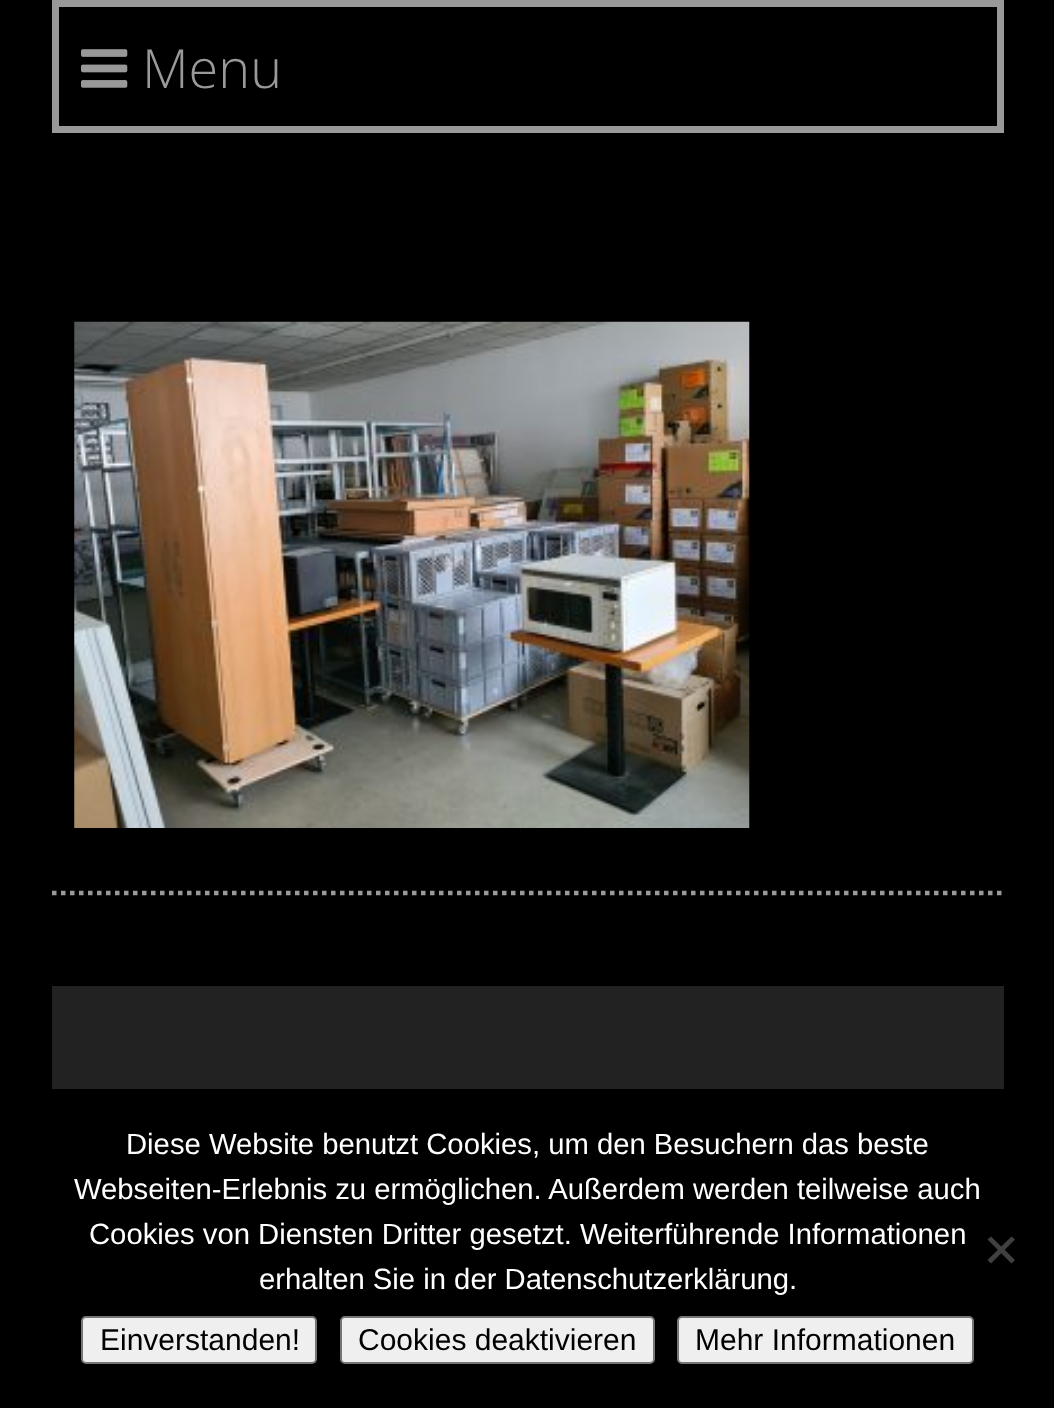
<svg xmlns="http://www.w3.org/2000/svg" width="1054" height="1408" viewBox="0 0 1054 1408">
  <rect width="100%" height="100%" fill="#000"/>
  <path d="M55.5 3.5h945v126H55.5z" fill="none" stroke="#999" stroke-width="7"/>
  <image x="81" y="49" width="47" height="39" href="img/1.png"/>
  <image x="74" y="321" width="676" height="507" href="img/2.png"/>
  <path d="M52 893H1003.5" fill="none" stroke="#999" stroke-width="4.5" stroke-dasharray="4.5 4.5"/>
  <path d="M52 986h952v103H52z" fill="#222"/>
  <path d="M1011.5 1236.5L1015 1239.5L991 1263.5L987.5 1260Z" fill="#404040"/>
  <path d="M987.5 1239.5L991 1236.5L1015 1260L1011.5 1263.5Z" fill="#404040"/>
  <rect x="82" y="1317" width="234" height="46" rx="4" fill="#efefef" stroke="#767676" stroke-width="2"/>
  <rect x="341" y="1317" width="313" height="46" rx="4" fill="#efefef" stroke="#767676" stroke-width="2"/>
  <rect x="678" y="1317" width="295" height="46" rx="4" fill="#efefef" stroke="#767676" stroke-width="2"/>
  <text x="142" y="88" font-family="Open Sans" font-size="54" font-weight="300" fill="#999">Menu</text>
  <g font-family="Liberation Sans" font-size="29.25" fill="#fff">
    <text x="126" y="1154">Diese Website benutzt Cookies, um den Besuchern das beste</text>
    <text x="74" y="1199">Webseiten-Erlebnis zu ermöglichen. Außerdem werden teilweise auch</text>
    <text x="89" y="1244">Cookies von Diensten Dritter gesetzt. Weiterführende Informationen</text>
    <text x="259" y="1289">erhalten Sie in der Datenschutzerklärung.</text>
  </g>
  <g font-family="Liberation Sans" font-size="30" fill="#000">
    <text x="100" y="1350">Einverstanden!</text>
    <text x="358" y="1350">Cookies deaktivieren</text>
    <text x="695" y="1350">Mehr Informationen</text>
  </g>
</svg>
